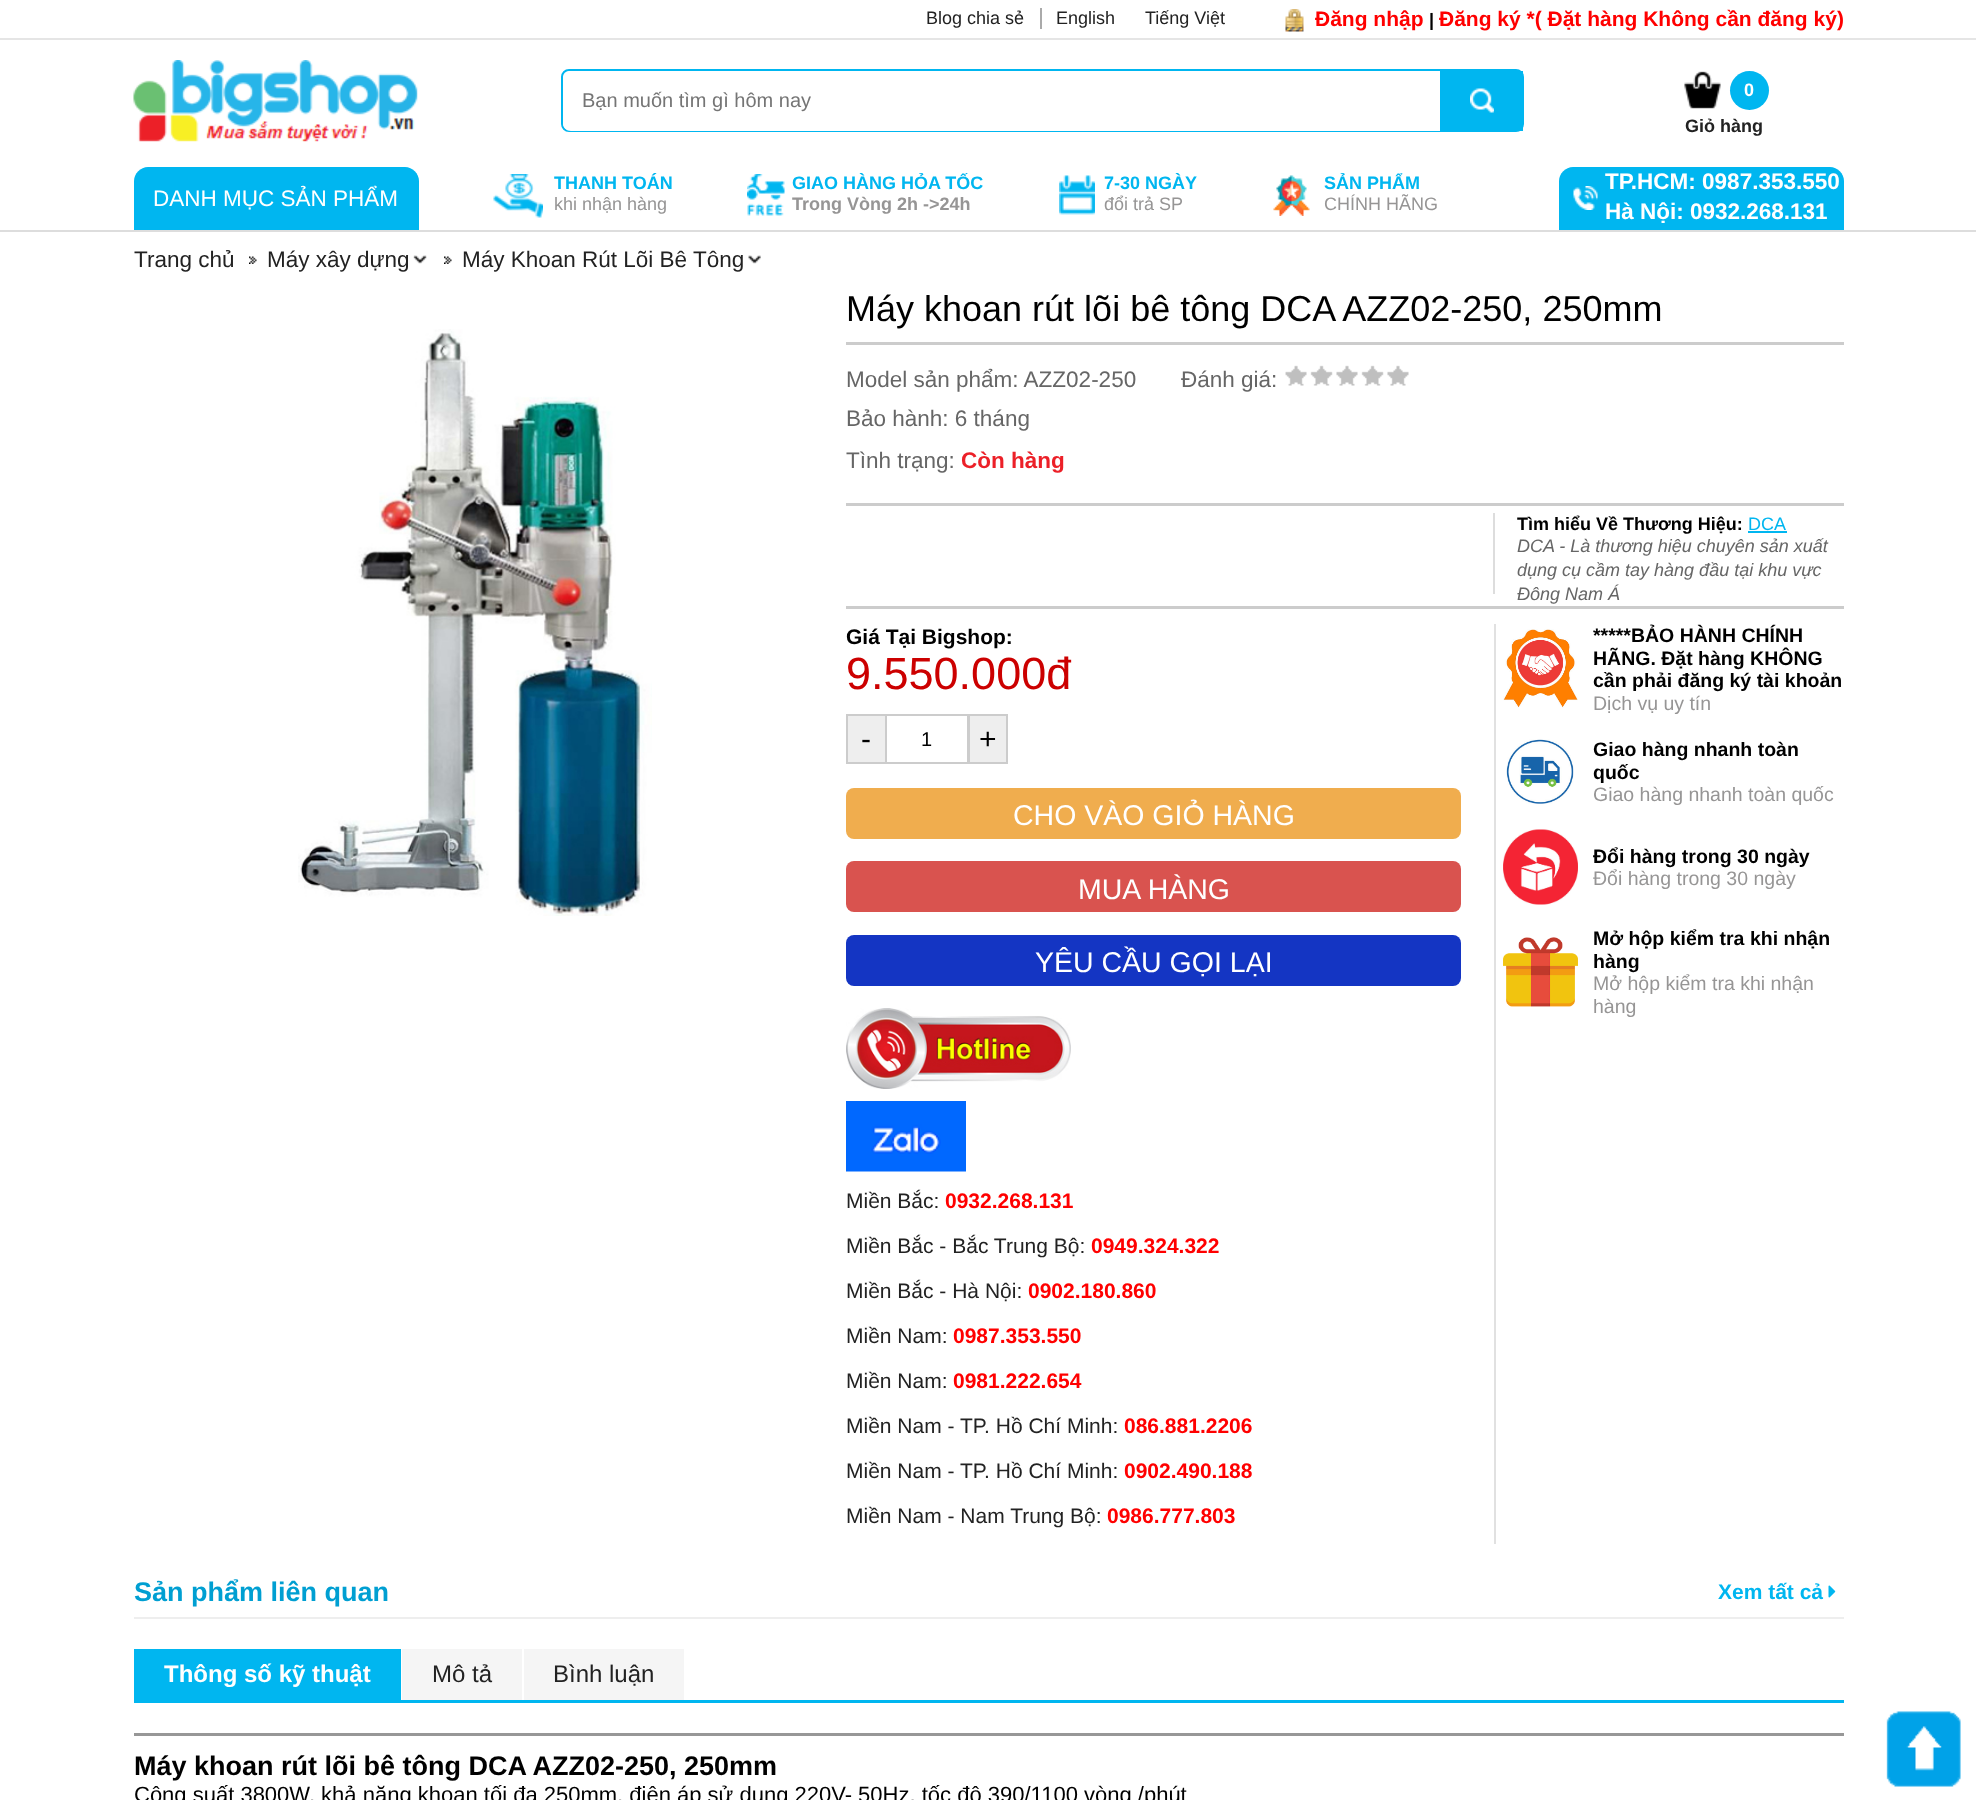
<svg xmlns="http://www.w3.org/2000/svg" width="1976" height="1800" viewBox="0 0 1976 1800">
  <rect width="100%" height="100%" fill="#fff"/>
  <path d="M0 38h1976v2H0z" fill="#e5e5e5"/>
  <path d="M1040 8h2v21H1040z" fill="#aaa"/>
  <image x="1285" y="9" width="19" height="23" href="img/1.png"/>
  <image x="133" y="60" width="285" height="82" href="img/2.png"/>
  <rect x="562" y="70" width="961" height="61" rx="7" fill="none" stroke="#00b6f0" stroke-width="2"/>
  <path d="M571 71H1440V131H571C566.5 131 563 127.5 563 123V79C563 74.5 566.5 71 571 71Z" fill="#fff"/>
  <path d="M1440 71h83v60H1440z" fill="#00b6f0"/>
  <image x="1470" y="88" width="24" height="25" href="img/3.png"/>
  <image x="1684" y="71" width="37" height="38" href="img/4.png"/>
  <circle cx="1749.5" cy="90.5" r="19.5" fill="#00b6f0"/>
  <path d="M0 230h1976v2H0z" fill="#ddd"/>
  <path d="M148 167H405C412.5 167 419 173.5 419 181V230H134V181C134 173.5 140.5 167 148 167Z" fill="#00b6f0"/>
  <image x="493" y="174" width="50" height="44" href="img/5.png"/>
  <image x="747" y="174" width="38" height="42" href="img/6.png"/>
  <image x="1059" y="175" width="36" height="40" href="img/7.png"/>
  <image x="1273" y="175" width="37" height="41" href="img/8.png"/>
  <path d="M1573 167H1830C1837.5 167 1844 173.5 1844 181V230H1559V181C1559 173.5 1565.5 167 1573 167Z" fill="#00b6f0"/>
  <image x="1573" y="186" width="25" height="24" href="img/9.png"/>
  <image x="249" y="256" width="8" height="8" href="img/10.png"/>
  <image x="413" y="255" width="14" height="9" href="img/11.png"/>
  <image x="444" y="256" width="8" height="8" href="img/12.png"/>
  <image x="748" y="255" width="13" height="9" href="img/13.png"/>
  <image x="298" y="329" width="354" height="587" href="img/14.png"/>
  <path d="M846 342h998v3H846z" fill="#ccc"/>
  <path d="M846 503h998v3H846z" fill="#ccc"/>
  <image x="1285" y="365" width="124" height="21" href="img/15.png"/>
  <path d="M1493 513h2v81H1493z" fill="#ddd"/>
  <path d="M1748 531h39v2H1748z" fill="#00b6f0"/>
  <path d="M846 606h998v3H846z" fill="#ccc"/>
  <path d="M1494 624h2v920H1494z" fill="#e1e1e1"/>
  <path d="M847 715h39v48H847z" fill="#eee" stroke="#ccc" stroke-width="2"/>
  <path d="M886 715h82v48H886z" fill="none" stroke="#ccc" stroke-width="2"/>
  <path d="M969 715h38v48H969z" fill="#eee" stroke="#ccc" stroke-width="2"/>
  <rect x="846" y="788" width="615" height="51" rx="8" fill="#f0ad4e"/>
  <rect x="846" y="861" width="615" height="51" rx="8" fill="#d9534f"/>
  <rect x="846" y="935" width="615" height="51" rx="8" fill="#1435c3"/>
  <image x="846" y="1008" width="225" height="81" href="img/16.png"/>
  <image x="846" y="1101" width="120" height="71" href="img/17.png"/>
  <image x="1503" y="629" width="75" height="79" href="img/18.png"/>
  <image x="1506" y="739" width="68" height="65" href="img/19.png"/>
  <image x="1503" y="829" width="75" height="76" href="img/20.png"/>
  <image x="1503" y="937" width="75" height="70" href="img/21.png"/>
  <path d="M134 1617h1710v2H134z" fill="#eee"/>
  <image x="1828" y="1585" width="8" height="13" href="img/22.png"/>
  <path d="M134 1700h1710v3H134z" fill="#00b6f0"/>
  <path d="M134 1649h267v51H134z" fill="#00b6f0"/>
  <path d="M402 1649h120v51H402z" fill="#f5f5f5"/>
  <path d="M524 1649h160v51H524z" fill="#f5f5f5"/>
  <path d="M134 1733h1710v3H134z" fill="#979797"/>
  <image x="1886" y="1711" width="75" height="76" href="img/23.png"/>
  <g font-family="Liberation Sans" font-size="18" fill="#222">
    <text x="926" y="24">Blog chia sẻ</text>
    <text x="1056" y="24">English</text>
    <text x="1145" y="24">Tiếng Việt</text>
  </g>
  <text x="1315" y="26" font-family="Liberation Sans" font-size="21" font-weight="bold" fill="#f00">Đăng nhập</text>
  <text x="1429" y="26" font-family="Liberation Sans" font-size="18" font-weight="bold" fill="#000">|</text>
  <text x="1439" y="26" font-family="Liberation Sans" font-size="21" font-weight="bold" fill="#f00">Đăng ký *( Đặt hàng Không cần đăng ký)</text>
  <text x="582" y="107" font-family="Liberation Sans" font-size="20" fill="#757575">Bạn muốn tìm gì hôm nay</text>
  <text x="1744" y="96" font-family="Liberation Sans" font-size="18" font-weight="bold" fill="#fff">0</text>
  <text x="1685" y="132" font-family="Liberation Sans" font-size="18" font-weight="bold" fill="#222">Giỏ hàng</text>
  <text x="153" y="206" font-family="Liberation Sans" font-size="22.5" fill="#fff">DANH MỤC SẢN PHẨM</text>
  <text x="554" y="189" font-family="Liberation Sans" font-size="18" font-weight="bold" fill="#00b6f0">THANH TOÁN</text>
  <text x="554" y="210" font-family="Liberation Sans" font-size="18" fill="#969595">khi nhận hàng</text>
  <text x="792" y="189" font-family="Liberation Sans" font-size="18" font-weight="bold" fill="#00b6f0">GIAO HÀNG HỎA TỐC</text>
  <text x="792" y="210" font-family="Liberation Sans" font-size="18" font-weight="bold" fill="#969595">Trong Vòng 2h -&gt;24h</text>
  <text x="1104" y="189" font-family="Liberation Sans" font-size="18" font-weight="bold" fill="#00b6f0">7-30 NGÀY</text>
  <text x="1104" y="210" font-family="Liberation Sans" font-size="18" fill="#969595">đổi trả SP</text>
  <text x="1324" y="189" font-family="Liberation Sans" font-size="18" font-weight="bold" fill="#00b6f0">SẢN PHẨM</text>
  <text x="1324" y="210" font-family="Liberation Sans" font-size="18" fill="#969595">CHÍNH HÃNG</text>
  <g font-family="Liberation Sans" font-size="22.5" font-weight="bold" fill="#fff">
    <text x="1605" y="189">TP.HCM: 0987.353.550</text>
    <text x="1605" y="219">Hà Nội: 0932.268.131</text>
  </g>
  <g font-family="Liberation Sans" font-size="22.5" fill="#222">
    <text x="134" y="267">Trang chủ</text>
    <text x="267" y="267">Máy xây dựng</text>
    <text x="462" y="267">Máy Khoan Rút Lõi Bê Tông</text>
  </g>
  <text x="846" y="321" font-family="Liberation Sans" font-size="36" fill="#000">Máy khoan rút lõi bê tông DCA AZZ02-250, 250mm</text>
  <g font-family="Liberation Sans" font-size="22.5" fill="#666">
    <text x="846" y="387">Model sản phẩm: AZZ02-250</text>
    <text x="1181" y="387">Đánh giá:</text>
    <text x="846" y="426">Bảo hành: 6 tháng</text>
    <text x="846" y="468">Tình trạng:</text>
  </g>
  <text x="961" y="468" font-family="Liberation Sans" font-size="22.5" font-weight="bold" fill="#ec2028">Còn hàng</text>
  <text x="1517" y="530" font-family="Liberation Sans" font-size="18" font-weight="bold" fill="#000">Tìm hiểu Về Thương Hiệu:</text>
  <text x="1748" y="530" font-family="Liberation Sans" font-size="18" fill="#00b6f0">DCA</text>
  <g font-family="Liberation Sans" font-size="18" font-style="italic" fill="#666">
    <text x="1517" y="552">DCA - Là thương hiệu chuyên sản xuất</text>
    <text x="1517" y="576">dụng cụ cầm tay hàng đầu tại khu vực</text>
    <text x="1517" y="600">Đông Nam Á</text>
  </g>
  <text x="846" y="644" font-family="Liberation Sans" font-size="21" font-weight="bold" fill="#000">Giá Tại Bigshop:</text>
  <text x="846" y="689" font-family="Liberation Sans" font-size="45" fill="#c00">9.550.000đ</text>
  <text x="861" y="749" font-family="Liberation Sans" font-size="30" fill="#000">-</text>
  <text x="921" y="746" font-family="Liberation Sans" font-size="20" fill="#000">1</text>
  <text x="979" y="749" font-family="Liberation Sans" font-size="30" fill="#000">+</text>
  <g font-family="Liberation Sans" font-size="28.5" fill="#fff">
    <text x="1013" y="825">CHO VÀO GIỎ HÀNG</text>
    <text x="1078" y="899">MUA HÀNG</text>
    <text x="1035" y="972">YÊU CẦU GỌI LẠI</text>
  </g>
  <text x="846" y="1208" font-family="Liberation Sans" font-size="21" fill="#222">Miền Bắc:</text>
  <text x="945" y="1208" font-family="Liberation Sans" font-size="21" font-weight="bold" fill="#f00">0932.268.131</text>
  <text x="846" y="1253" font-family="Liberation Sans" font-size="21" fill="#222">Miền Bắc - Bắc Trung Bộ:</text>
  <text x="1091" y="1253" font-family="Liberation Sans" font-size="21" font-weight="bold" fill="#f00">0949.324.322</text>
  <text x="846" y="1298" font-family="Liberation Sans" font-size="21" fill="#222">Miền Bắc - Hà Nội:</text>
  <text x="1028" y="1298" font-family="Liberation Sans" font-size="21" font-weight="bold" fill="#f00">0902.180.860</text>
  <text x="846" y="1343" font-family="Liberation Sans" font-size="21" fill="#222">Miền Nam:</text>
  <text x="953" y="1343" font-family="Liberation Sans" font-size="21" font-weight="bold" fill="#f00">0987.353.550</text>
  <text x="846" y="1388" font-family="Liberation Sans" font-size="21" fill="#222">Miền Nam:</text>
  <text x="953" y="1388" font-family="Liberation Sans" font-size="21" font-weight="bold" fill="#f00">0981.222.654</text>
  <text x="846" y="1433" font-family="Liberation Sans" font-size="21" fill="#222">Miền Nam - TP. Hồ Chí Minh:</text>
  <text x="1124" y="1433" font-family="Liberation Sans" font-size="21" font-weight="bold" fill="#f00">086.881.2206</text>
  <text x="846" y="1478" font-family="Liberation Sans" font-size="21" fill="#222">Miền Nam - TP. Hồ Chí Minh:</text>
  <text x="1124" y="1478" font-family="Liberation Sans" font-size="21" font-weight="bold" fill="#f00">0902.490.188</text>
  <text x="846" y="1523" font-family="Liberation Sans" font-size="21" fill="#222">Miền Nam - Nam Trung Bộ:</text>
  <text x="1107" y="1523" font-family="Liberation Sans" font-size="21" font-weight="bold" fill="#f00">0986.777.803</text>
  <g font-family="Liberation Sans" font-size="19.5" font-weight="bold" fill="#000">
    <text x="1593" y="642">*****BẢO HÀNH CHÍNH</text>
    <text x="1593" y="665">HÃNG. Đặt hàng KHÔNG</text>
    <text x="1593" y="687">cần phải đăng ký tài khoản</text>
  </g>
  <text x="1593" y="710" font-family="Liberation Sans" font-size="19.5" fill="#969595">Dịch vụ uy tín</text>
  <g font-family="Liberation Sans" font-size="19.5" font-weight="bold" fill="#000">
    <text x="1593" y="756">Giao hàng nhanh toàn</text>
    <text x="1593" y="779">quốc</text>
  </g>
  <text x="1593" y="801" font-family="Liberation Sans" font-size="19.5" fill="#969595">Giao hàng nhanh toàn quốc</text>
  <text x="1593" y="863" font-family="Liberation Sans" font-size="19.5" font-weight="bold" fill="#000">Đổi hàng trong 30 ngày</text>
  <text x="1593" y="885" font-family="Liberation Sans" font-size="19.5" fill="#969595">Đổi hàng trong 30 ngày</text>
  <g font-family="Liberation Sans" font-size="19.5" font-weight="bold" fill="#000">
    <text x="1593" y="945">Mở hộp kiểm tra khi nhận</text>
    <text x="1593" y="968">hàng</text>
  </g>
  <g font-family="Liberation Sans" font-size="19.5" fill="#969595">
    <text x="1593" y="990">Mở hộp kiểm tra khi nhận</text>
    <text x="1593" y="1013">hàng</text>
  </g>
  <text x="134" y="1601" font-family="Liberation Sans" font-size="27" font-weight="bold" fill="#009fd2">Sản phẩm liên quan</text>
  <text x="1718" y="1599" font-family="Liberation Sans" font-size="21" font-weight="bold" fill="#00b6f0">Xem tất cả</text>
  <text x="164" y="1682" font-family="Liberation Sans" font-size="24" font-weight="bold" fill="#fff">Thông số kỹ thuật</text>
  <g font-family="Liberation Sans" font-size="24" fill="#222">
    <text x="432" y="1682">Mô tả</text>
    <text x="553" y="1682">Bình luận</text>
  </g>
  <text x="134" y="1775" font-family="Liberation Sans" font-size="27" font-weight="bold" fill="#000">Máy khoan rút lõi bê tông DCA AZZ02-250, 250mm</text>
  <text x="134" y="1802" font-family="Liberation Sans" font-size="22" fill="#000">Công suất 3800W, khả năng khoan tối đa 250mm, điện áp sử dụng 220V- 50Hz, tốc độ 390/1100 vòng /phút</text>
</svg>
